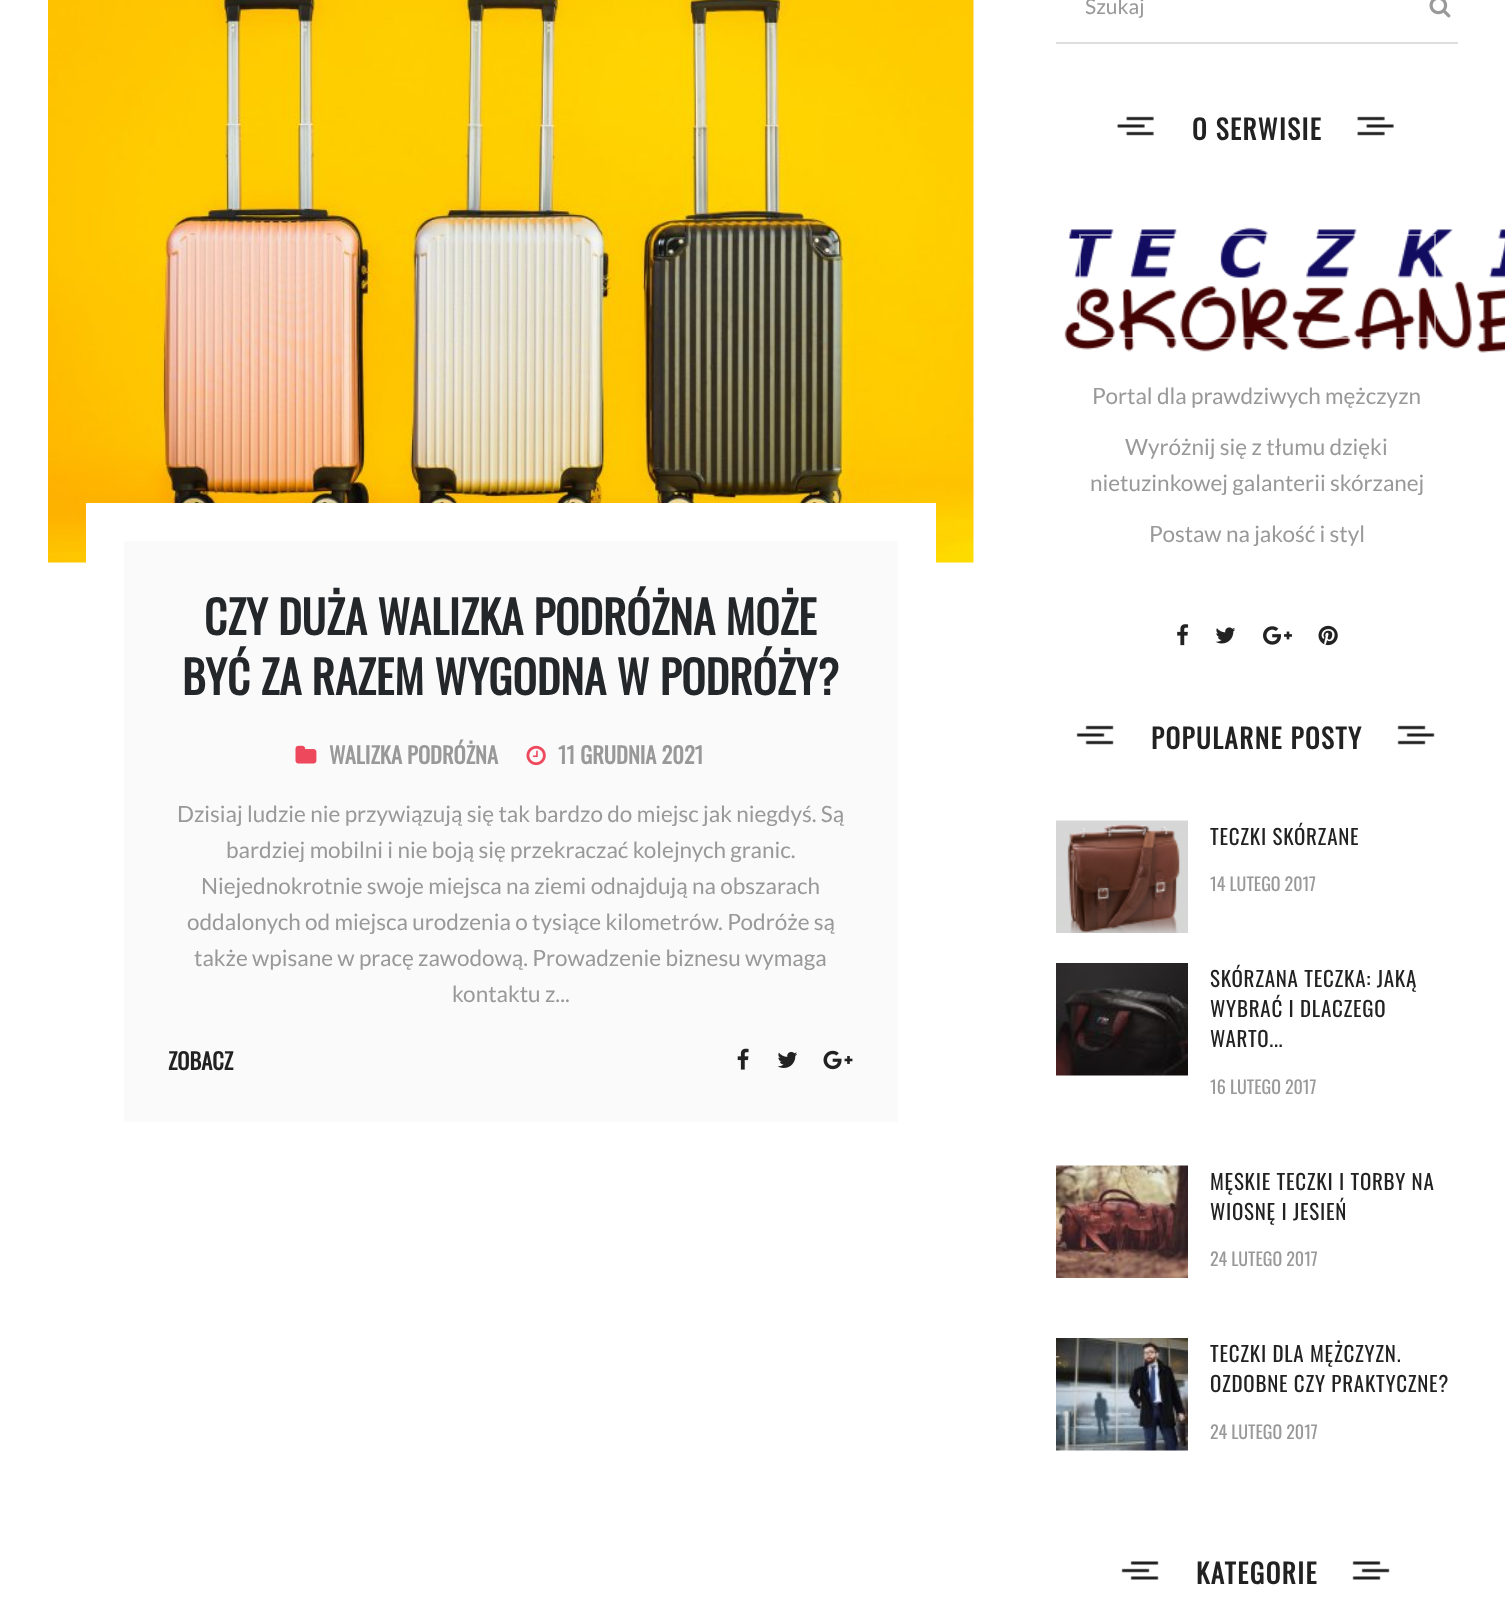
<svg xmlns="http://www.w3.org/2000/svg" width="1505" height="1624" viewBox="0 0 1505 1624">
  <rect width="100%" height="100%" fill="#fff"/>
  <image x="48" y="0" width="926" height="563" href="img/1.png"/>
  <path d="M105 522h812v619H105z" fill="#fafafa" stroke="#fff" stroke-width="38"/>
  <image x="295" y="745" width="22" height="19" href="img/2.png"/>
  <image x="526" y="745" width="20" height="21" href="img/3.png"/>
  <image x="737" y="1048" width="12" height="22" href="img/4.png"/>
  <image x="777" y="1051" width="21" height="17" href="img/5.png"/>
  <image x="823" y="1050" width="30" height="20" href="img/6.png"/>
  <path d="M1056 42h402v2H1056z" fill="#dedede"/>
  <image x="1429" y="0" width="22" height="18" href="img/7.png"/>
  <image x="1117" y="116" width="37" height="20" href="img/8.png"/>
  <image x="1357" y="116" width="37" height="20" href="img/9.png"/>
  <image x="1064" y="227" width="441" height="126" href="img/10.png"/>
  <path d="M1080 235h355v103H1080z" fill="none" stroke="#ffffff80" stroke-width="2"/>
  <image x="1177" y="624" width="12" height="22" href="img/11.png"/>
  <image x="1215" y="627" width="21" height="17" href="img/12.png"/>
  <image x="1263" y="626" width="29" height="19" href="img/13.png"/>
  <image x="1318" y="625" width="20" height="21" href="img/14.png"/>
  <image x="1076" y="725" width="38" height="20" href="img/15.png"/>
  <image x="1397" y="725" width="38" height="20" href="img/16.png"/>
  <image x="1056" y="820" width="132" height="113" href="img/17.png"/>
  <image x="1056" y="963" width="132" height="113" href="img/18.png"/>
  <image x="1056" y="1165" width="132" height="113" href="img/19.png"/>
  <image x="1056" y="1338" width="132" height="113" href="img/20.png"/>
  <image x="1121" y="1561" width="38" height="19" href="img/21.png"/>
  <image x="1352" y="1561" width="38" height="19" href="img/22.png"/>
  <g font-family="Oswald" font-size="45" font-weight="bold" fill="#24272a">
    <text x="204" y="635">CZY DUŻA WALIZKA PODRÓŻNA MOŻE</text>
    <text x="182" y="695">BYĆ ZA RAZEM WYGODNA W PODRÓŻY?</text>
  </g>
  <g font-family="Oswald" font-size="22.5" font-weight="bold" fill="#999">
    <text x="329" y="764">WALIZKA PODRÓŻNA</text>
    <text x="558" y="764">11 GRUDNIA 2021</text>
  </g>
  <g font-family="Lato" font-size="22.5" fill="#999">
    <text x="177" y="822">Dzisiaj ludzie nie przywiązują się tak bardzo do miejsc jak niegdyś. Są</text>
    <text x="226" y="858">bardziej mobilni i nie boją się przekraczać kolejnych granic.</text>
    <text x="201" y="894">Niejednokrotnie swoje miejsca na ziemi odnajdują na obszarach</text>
    <text x="187" y="930">oddalonych od miejsca urodzenia o tysiące kilometrów. Podróże są</text>
    <text x="194" y="966">także wpisane w pracę zawodową. Prowadzenie biznesu wymaga</text>
    <text x="452" y="1002">kontaktu z...</text>
  </g>
  <text x="168" y="1070" font-family="Oswald" font-size="22.5" font-weight="bold" fill="#222">ZOBACZ</text>
  <text x="1085" y="14" font-family="Lato" font-size="21" fill="#999">Szukaj</text>
  <text x="1192" y="140" font-family="Oswald" font-size="27" font-weight="bold" letter-spacing="1.5" fill="#222">O SERWISIE</text>
  <g font-family="Lato" font-size="22.5" fill="#999">
    <text x="1092" y="404">Portal dla prawdziwych mężczyzn</text>
    <text x="1125" y="455">Wyróżnij się z tłumu dzięki</text>
    <text x="1090" y="491">nietuzinkowej galanterii skórzanej</text>
    <text x="1149" y="542">Postaw na jakość i styl</text>
  </g>
  <text x="1151" y="749" font-family="Oswald" font-size="27" font-weight="bold" letter-spacing="1.5" fill="#222">POPULARNE POSTY</text>
  <text x="1210" y="845" font-family="Oswald" font-size="21" letter-spacing="0.75" fill="#222">TECZKI SKÓRZANE</text>
  <text x="1210" y="891" font-family="Oswald" font-size="18" fill="#999">14 LUTEGO 2017</text>
  <g font-family="Oswald" font-size="21" letter-spacing="0.75" fill="#222">
    <text x="1210" y="987">SKÓRZANA TECZKA: JAKĄ</text>
    <text x="1210" y="1017">WYBRAĆ I DLACZEGO</text>
    <text x="1210" y="1047">WARTO...</text>
  </g>
  <text x="1210" y="1094" font-family="Oswald" font-size="18" fill="#999">16 LUTEGO 2017</text>
  <g font-family="Oswald" font-size="21" letter-spacing="0.75" fill="#222">
    <text x="1210" y="1190">MĘSKIE TECZKI I TORBY NA</text>
    <text x="1210" y="1220">WIOSNĘ I JESIEŃ</text>
  </g>
  <text x="1210" y="1266" font-family="Oswald" font-size="18" fill="#999">24 LUTEGO 2017</text>
  <g font-family="Oswald" font-size="21" letter-spacing="0.75" fill="#222">
    <text x="1210" y="1362">TECZKI DLA MĘŻCZYZN.</text>
    <text x="1210" y="1392">OZDOBNE CZY PRAKTYCZNE?</text>
  </g>
  <text x="1210" y="1439" font-family="Oswald" font-size="18" fill="#999">24 LUTEGO 2017</text>
  <text x="1196" y="1584" font-family="Oswald" font-size="27" font-weight="bold" letter-spacing="1.5" fill="#222">KATEGORIE</text>
</svg>
